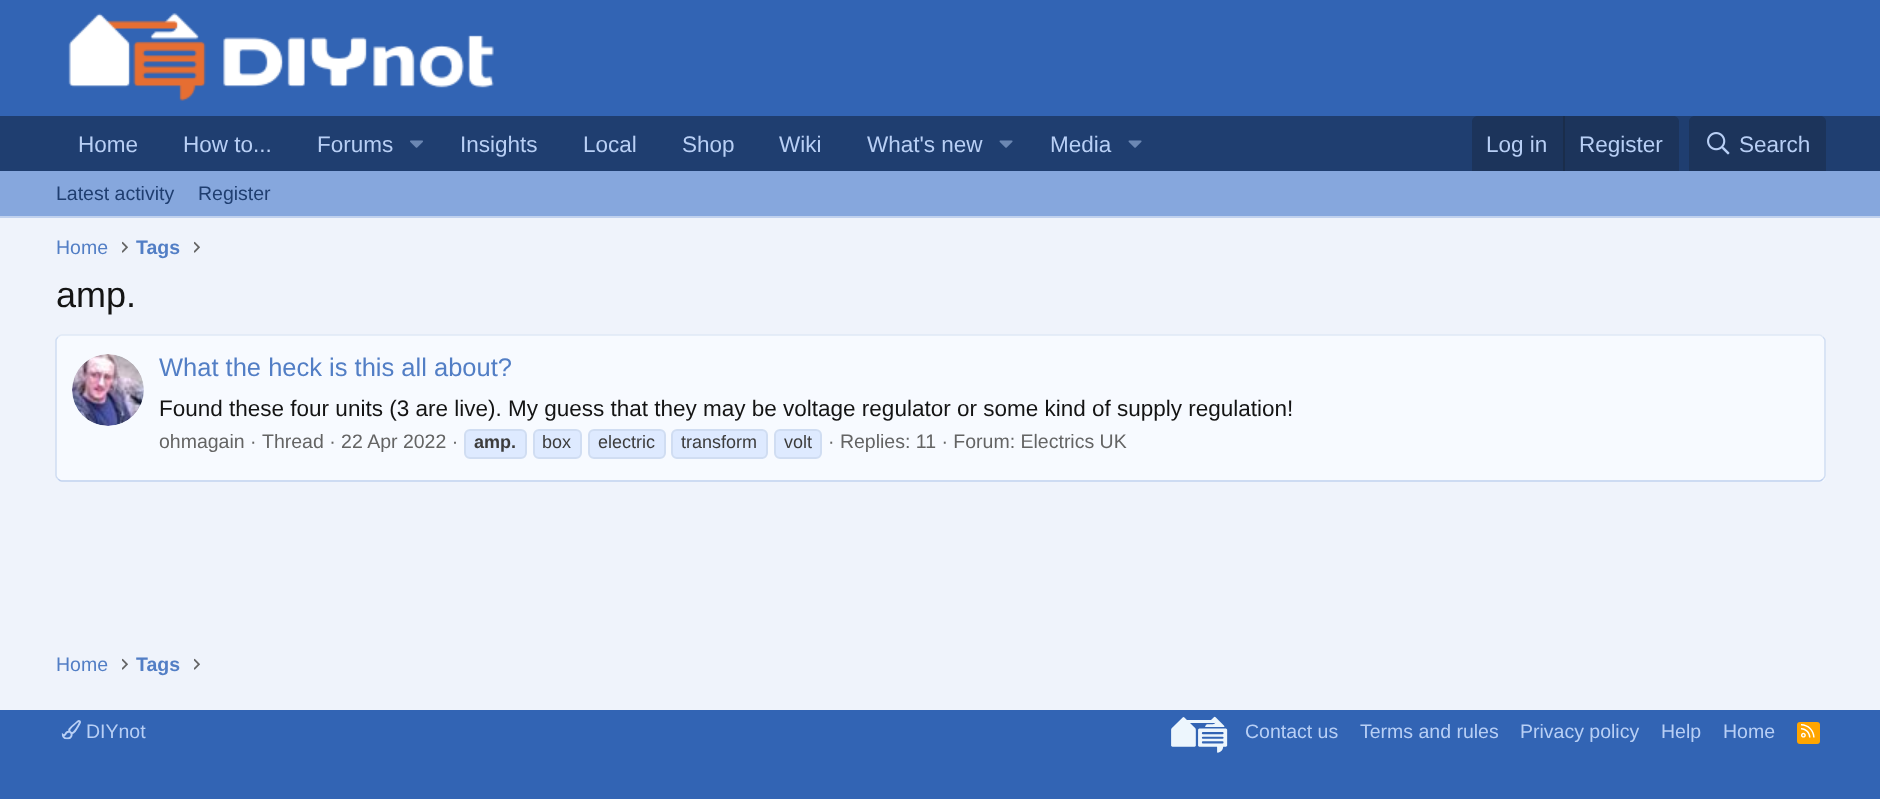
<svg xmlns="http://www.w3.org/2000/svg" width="1880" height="799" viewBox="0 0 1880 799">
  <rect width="100%" height="100%" fill="#eff3fb"/>
  <path d="M0 0h1880v116H0z" fill="#3264b4"/>
  <image x="68" y="13" width="426" height="88" href="img/1.png"/>
  <path d="M0 116h1880v55H0z" fill="#1f3e70"/>
  <image x="410" y="140" width="13" height="8" href="img/2.png"/>
  <image x="999" y="140" width="14" height="8" href="img/3.png"/>
  <image x="1128" y="140" width="14" height="8" href="img/3.png"/>
  <path d="M1478 116H1673C1676.5 116 1679 118.5 1679 122V171H1472V122C1472 118.5 1474.5 116 1478 116Z" fill="#1c345b"/>
  <path d="M1563 116h2v55H1563z" fill="#1a2d4b"/>
  <path d="M1695 116H1820C1823.5 116 1826 118.5 1826 122V171H1689V122C1689 118.5 1691.5 116 1695 116Z" fill="#1c345b"/>
  <image x="1707" y="132" width="23" height="23" href="img/4.png"/>
  <path d="M0 171h1880v45H0z" fill="#86a7dd"/>
  <path d="M0 216h1880v2H0z" fill="#c0d1ee"/>
  <image x="122" y="241" width="6" height="12" href="img/5.png"/>
  <image x="194" y="241" width="6" height="12" href="img/5.png"/>
  <rect x="56" y="335" width="1770" height="147" rx="6" fill="#f7faff"/>
  <path d="M58 337C59 336 60 335 61.5 335H1819.5C1821 335 1822 336 1823 337" fill="none" stroke="#e0e9f6" stroke-width="1.5"/>
  <path d="M1823 337C1824 338 1825 339 1825 340.5V475.5C1825 477 1824 478 1823 479" fill="none" stroke="#d0ddf2" stroke-width="1.5"/>
  <path d="M1823 479C1822 480 1821 481 1819.5 481H61.5C60 481 59 480 58 479" fill="none" stroke="#c0d1ee" stroke-width="1.5"/>
  <path d="M58 479C57 478 56 477 56 475.5V340.5C56 339 57 338 58 337" fill="none" stroke="#d0ddf2" stroke-width="1.5"/>
  <image x="72" y="354" width="72" height="72" href="img/6.png"/>
  <rect x="465" y="430" width="61" height="28" rx="5" fill="#deeaff" stroke="#d0ddf2" stroke-width="2"/>
  <rect x="534" y="430" width="47" height="28" rx="5" fill="#deeaff" stroke="#d0ddf2" stroke-width="2"/>
  <rect x="589" y="430" width="76" height="28" rx="5" fill="#deeaff" stroke="#d0ddf2" stroke-width="2"/>
  <rect x="672" y="430" width="95" height="28" rx="5" fill="#deeaff" stroke="#d0ddf2" stroke-width="2"/>
  <rect x="775" y="430" width="46" height="28" rx="5" fill="#deeaff" stroke="#d0ddf2" stroke-width="2"/>
  <image x="122" y="658" width="6" height="12" href="img/5.png"/>
  <image x="194" y="658" width="6" height="12" href="img/5.png"/>
  <path d="M0 710h1880v89H0z" fill="#3264b4"/>
  <image x="61" y="720" width="20" height="20" href="img/7.png"/>
  <image x="1171" y="716" width="57" height="37" href="img/8.png"/>
  <rect x="1797" y="722" width="23" height="22" rx="3" fill="#ffa500"/>
  <image x="1801" y="724" width="14" height="14" href="img/9.png"/>
  <g font-family="Liberation Sans" font-size="22.5" fill="#b8cff5">
    <text x="78" y="152">Home</text>
    <text x="183" y="152">How to...</text>
    <text x="317" y="152">Forums</text>
    <text x="460" y="152">Insights</text>
    <text x="583" y="152">Local</text>
    <text x="682" y="152">Shop</text>
    <text x="779" y="152">Wiki</text>
    <text x="867" y="152">What's new</text>
    <text x="1050" y="152">Media</text>
    <text x="1486" y="152">Log in</text>
    <text x="1579" y="152">Register</text>
    <text x="1739" y="152">Search</text>
  </g>
  <g font-family="Liberation Sans" font-size="19.5" fill="#1f3e70">
    <text x="56" y="200">Latest activity</text>
    <text x="198" y="200">Register</text>
  </g>
  <text x="56" y="254" font-family="Liberation Sans" font-size="19.5" fill="#527ec5">Home</text>
  <text x="136" y="254" font-family="Liberation Sans" font-size="19.5" font-weight="bold" fill="#527ec5">Tags</text>
  <text x="56" y="307" font-family="Liberation Sans" font-size="36" fill="#141414">amp.</text>
  <text x="159" y="376" font-family="Liberation Sans" font-size="25.5" fill="#527ec5">What the heck is this all about?</text>
  <text x="159" y="416" font-family="Liberation Sans" font-size="22.5" fill="#141414">Found these four units (3 are live). My guess that they may be voltage regulator or some kind of supply regulation!</text>
  <g font-family="Liberation Sans" font-size="19.5" fill="#646464">
    <text x="159" y="448">ohmagain ·</text>
    <text x="262" y="448">Thread · 22 Apr 2022 ·</text>
  </g>
  <text x="474" y="448" font-family="Liberation Sans" font-size="18" font-weight="bold" fill="#3c3c3c">amp.</text>
  <g font-family="Liberation Sans" font-size="18" fill="#3c3c3c">
    <text x="542" y="448">box</text>
    <text x="598" y="448">electric</text>
    <text x="681" y="448">transform</text>
    <text x="784" y="448">volt</text>
  </g>
  <text x="828" y="448" font-family="Liberation Sans" font-size="19.5" fill="#646464">· Replies: 11 · Forum: Electrics UK</text>
  <text x="56" y="671" font-family="Liberation Sans" font-size="19.5" fill="#527ec5">Home</text>
  <text x="136" y="671" font-family="Liberation Sans" font-size="19.5" font-weight="bold" fill="#527ec5">Tags</text>
  <g font-family="Liberation Sans" font-size="19.5" fill="#b8cff5">
    <text x="86" y="738">DIYnot</text>
    <text x="1245" y="738">Contact us</text>
    <text x="1360" y="738">Terms and rules</text>
    <text x="1520" y="738">Privacy policy</text>
    <text x="1661" y="738">Help</text>
    <text x="1723" y="738">Home</text>
  </g>
</svg>
